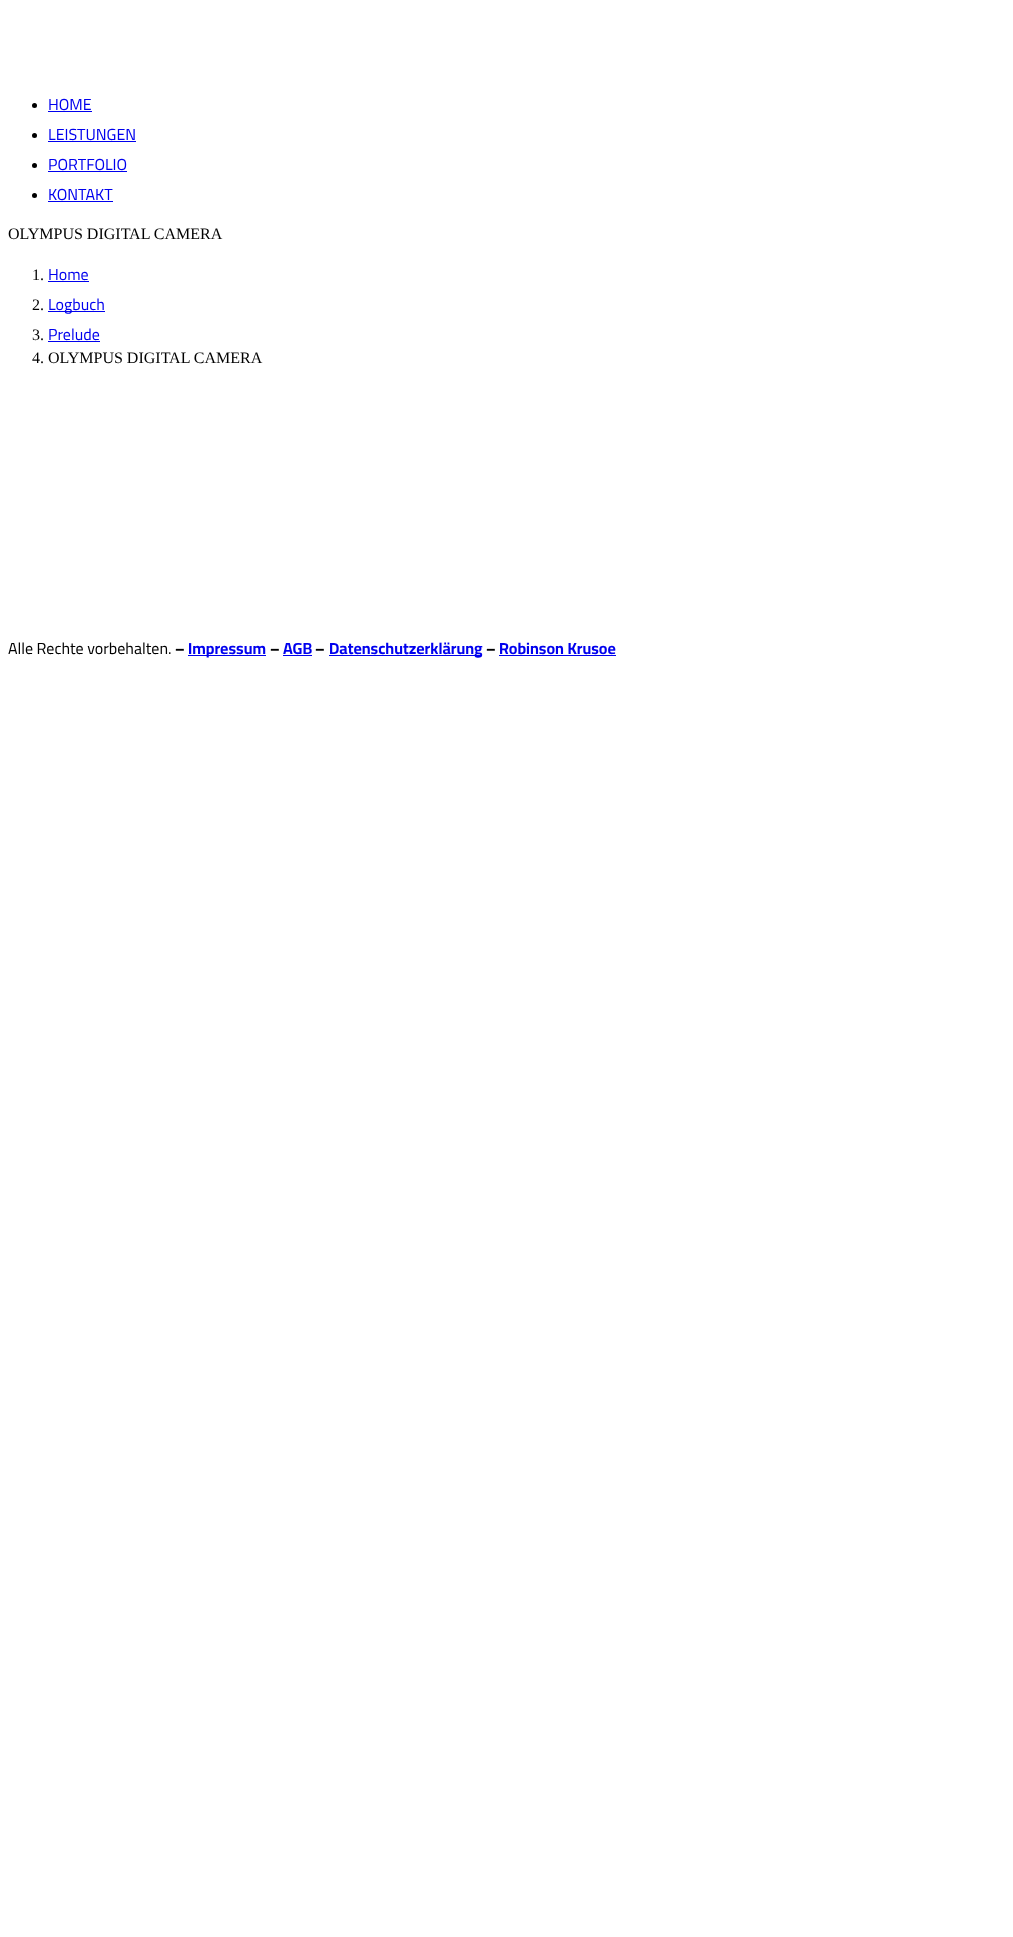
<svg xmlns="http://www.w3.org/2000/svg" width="1013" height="1937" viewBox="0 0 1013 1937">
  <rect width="100%" height="100%" fill="#fff"/>
  <circle cx="34.5" cy="105.5" r="2.5" fill="#000"/>
  <path d="M48 111h44v1H48z" fill="#00e"/>
  <circle cx="34.5" cy="135.5" r="2.5" fill="#000"/>
  <path d="M48 141h88v1H48z" fill="#00e"/>
  <circle cx="34.5" cy="165.5" r="2.5" fill="#000"/>
  <path d="M48 171h79v1H48z" fill="#00e"/>
  <circle cx="34.5" cy="195.5" r="2.5" fill="#000"/>
  <path d="M48 201h65v1H48z" fill="#00e"/>
  <path d="M48 281h41v1H48z" fill="#00e"/>
  <path d="M48 311h57v1H48z" fill="#00e"/>
  <path d="M48 341h52v1H48z" fill="#00e"/>
  <path d="M188 655h78v1H188z" fill="#00e"/>
  <path d="M283 655h29v1H283z" fill="#00e"/>
  <path d="M329 655h153v1H329z" fill="#00e"/>
  <path d="M499 655h117v1H499z" fill="#00e"/>
  <g font-family="Cairo" font-size="16" fill="#00e">
    <text x="48" y="110">HOME</text>
    <text x="48" y="140">LEISTUNGEN</text>
    <text x="48" y="170">PORTFOLIO</text>
    <text x="48" y="200">KONTAKT</text>
  </g>
  <g font-family="Liberation Serif" font-size="16" fill="#000">
    <text x="8" y="239">OLYMPUS DIGITAL CAMERA</text>
    <text x="32" y="280">1.</text>
  </g>
  <text x="48" y="280" font-family="Cairo" font-size="16" fill="#00e">Home</text>
  <text x="32" y="310" font-family="Liberation Serif" font-size="16" fill="#000">2.</text>
  <text x="48" y="310" font-family="Cairo" font-size="16" fill="#00e">Logbuch</text>
  <text x="32" y="340" font-family="Liberation Serif" font-size="16" fill="#000">3.</text>
  <text x="48" y="340" font-family="Cairo" font-size="16" fill="#00e">Prelude</text>
  <text x="32" y="363" font-family="Liberation Serif" font-size="16" fill="#000">4. OLYMPUS DIGITAL CAMERA</text>
  <text x="8" y="654" font-family="Cairo" font-size="16" fill="#000">Alle Rechte vorbehalten.</text>
  <text x="175" y="654" font-family="Cairo" font-size="16" font-weight="bold" fill="#000">–</text>
  <text x="188" y="654" font-family="Cairo" font-size="16" font-weight="bold" fill="#00e">Impressum</text>
  <text x="270" y="654" font-family="Cairo" font-size="16" font-weight="bold" fill="#000">–</text>
  <text x="283" y="654" font-family="Cairo" font-size="16" font-weight="bold" fill="#00e">AGB</text>
  <text x="315" y="654" font-family="Cairo" font-size="16" font-weight="bold" fill="#000">–</text>
  <text x="329" y="654" font-family="Cairo" font-size="16" font-weight="bold" fill="#00e">Datenschutzerklärung</text>
  <text x="486" y="654" font-family="Cairo" font-size="16" font-weight="bold" fill="#000">–</text>
  <text x="499" y="654" font-family="Cairo" font-size="16" font-weight="bold" fill="#00e">Robinson Krusoe</text>
</svg>
